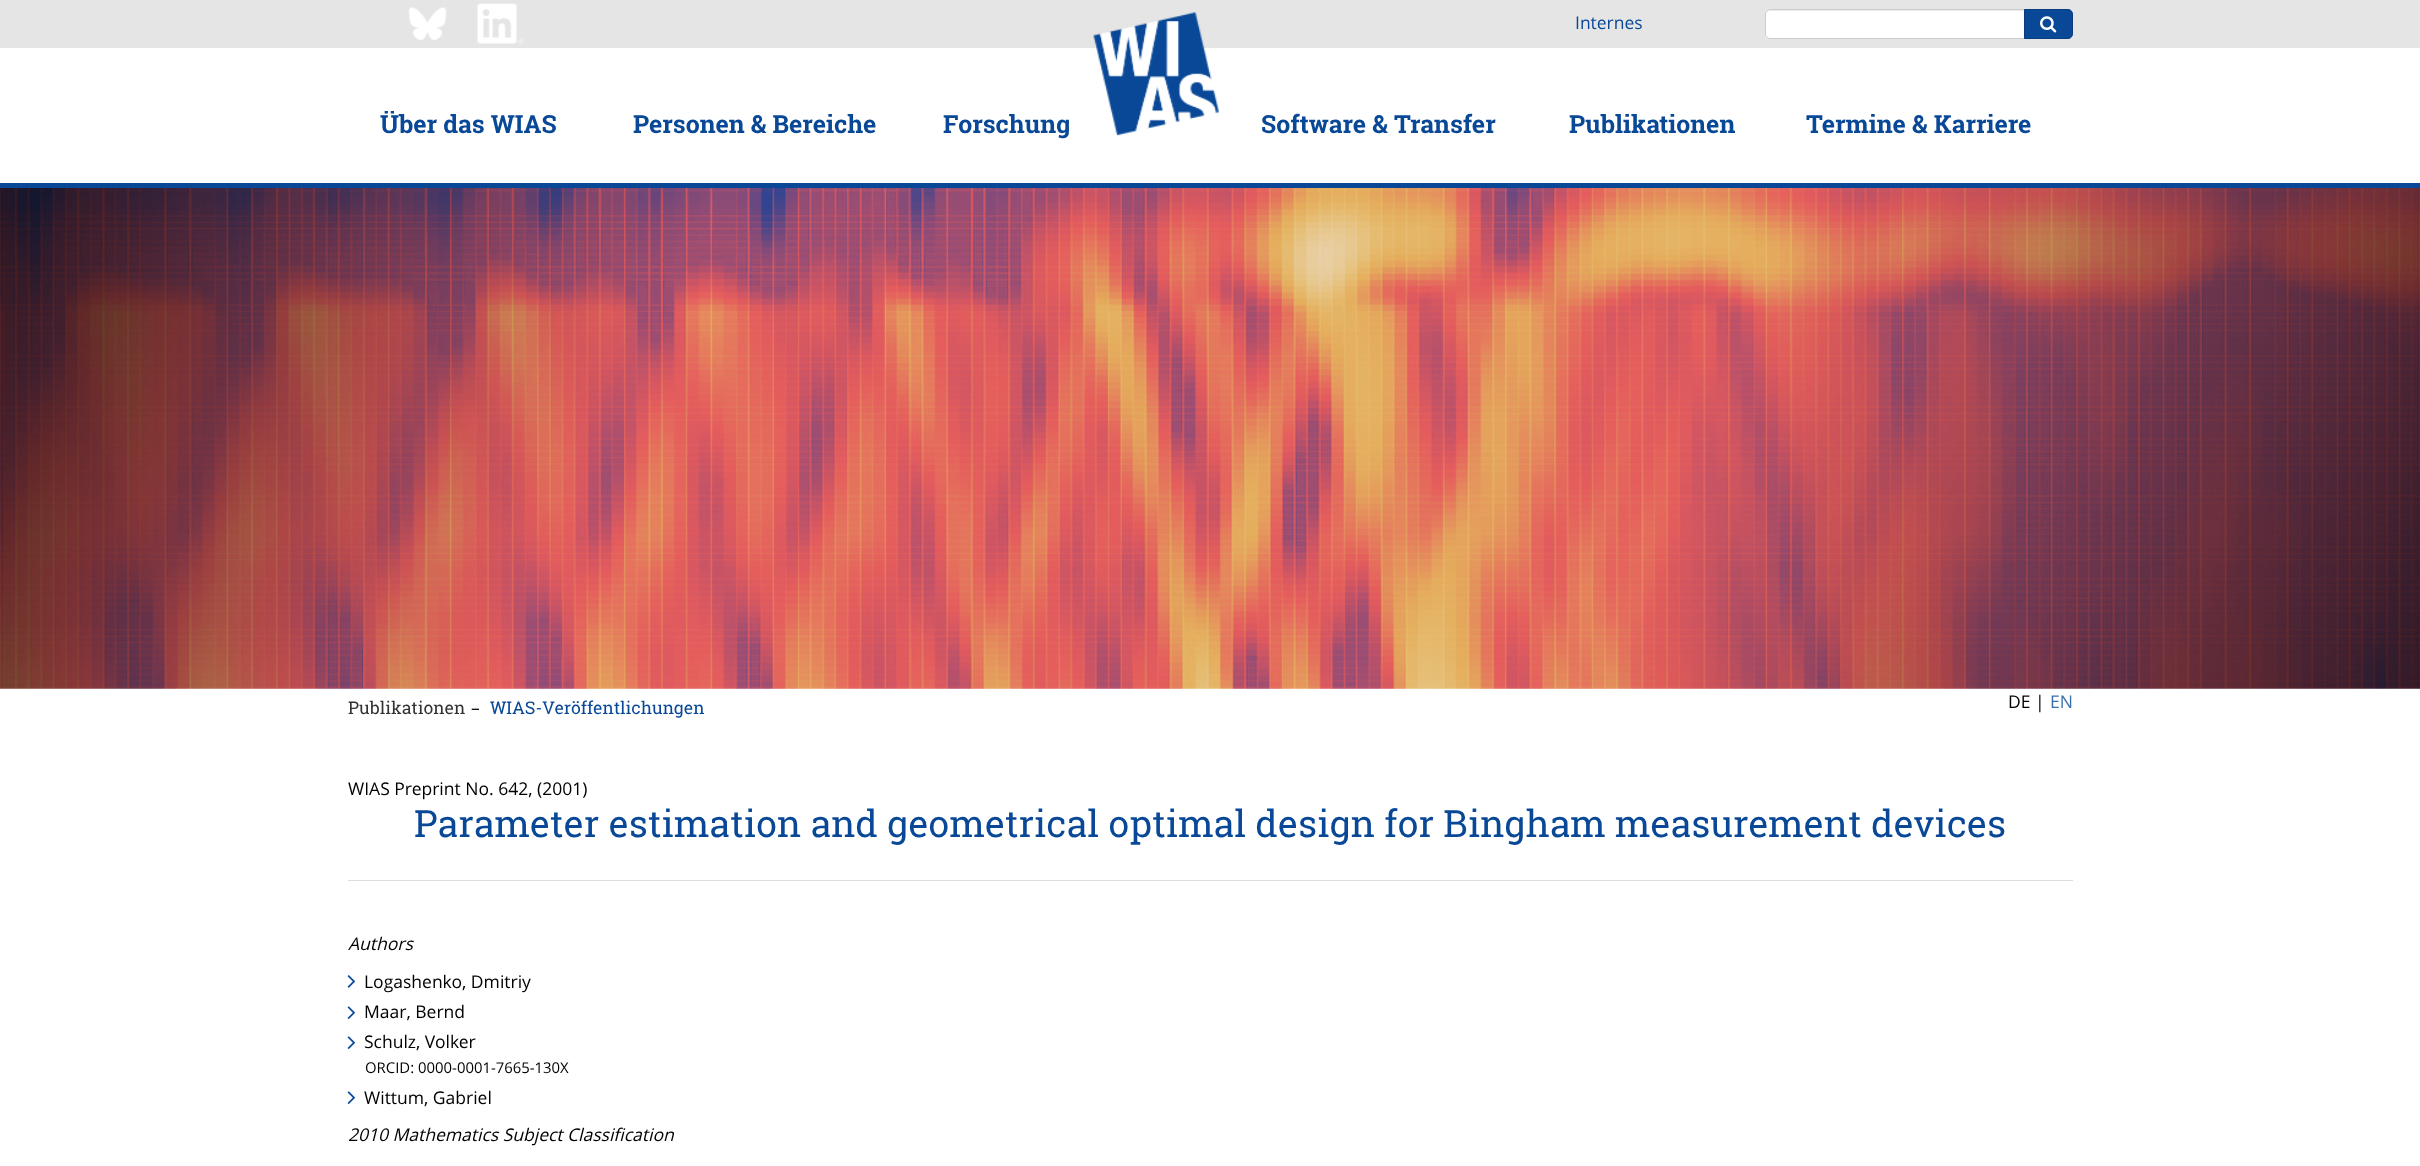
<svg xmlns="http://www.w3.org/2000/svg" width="2420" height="1166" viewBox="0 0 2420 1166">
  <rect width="100%" height="100%" fill="#fff"/>
  <path d="M0 0h2420v48H0z" fill="#e5e5e5"/>
  <image x="408" y="7" width="39" height="34" href="img/1.png"/>
  <image x="477" y="3" width="47" height="41" href="img/2.png"/>
  <path d="M1770 9H2025V39H1770C1767 39 1765 37 1765 34V14C1765 11 1767 9 1770 9Z" fill="#fff"/>
  <path d="M1770 11H2024V10H1770C1768 10 1766 12 1766 14V15C1766 13 1768 11 1770 11Z" fill="#ececec"/>
  <path d="M1770 9.5H2024.5V38.5H1770C1767.5 38.5 1765.5 36.5 1765.5 34V14C1765.5 11.5 1767.5 9.5 1770 9.5Z" fill="none" stroke="#ccc"/>
  <path d="M2024.5 9.5H2068C2070.5 9.5 2072.5 11.5 2072.5 14V34C2072.5 36.5 2070.5 38.5 2068 38.5H2024.5Z" fill="#084897" stroke="#073c7f"/>
  <image x="2040" y="16" width="17" height="17" href="img/3.png"/>
  <path d="M0 183h2420v5H0z" fill="#084897"/>
  <image x="1093" y="12" width="126" height="124" href="img/4.png"/>
  <image x="0" y="188" width="2420" height="501" href="img/5.png"/>
  <path d="M348 880h1725v1H348z" fill="#dedede"/>
  <image x="347" y="975" width="8" height="13" href="img/6.png"/>
  <image x="347" y="1006" width="8" height="13" href="img/7.png"/>
  <image x="347" y="1036" width="8" height="13" href="img/7.png"/>
  <image x="347" y="1091" width="8" height="13" href="img/7.png"/>
  <text x="1575" y="29" font-family="Open Sans" font-size="17.5" fill="#084897">Internes</text>
  <g font-family="Roboto Slab" font-size="25" font-weight="bold" fill="#084897">
    <text x="380" y="133">Über das WIAS</text>
    <text x="633" y="133">Personen &amp; Bereiche</text>
    <text x="943" y="133">Forschung</text>
    <text x="1261" y="133">Software &amp; Transfer</text>
    <text x="1569" y="133">Publikationen</text>
    <text x="1806" y="133">Termine &amp; Karriere</text>
  </g>
  <text x="348" y="714" font-family="Roboto Slab" font-size="17.5" fill="#333">Publikationen</text>
  <text x="471" y="714" font-family="Open Sans" font-size="17.5" fill="#000">–</text>
  <text x="490" y="714" font-family="Roboto Slab" font-size="17.5" fill="#084897">WIAS-Veröffentlichungen</text>
  <text x="2008" y="708" font-family="Open Sans" font-size="17.5" fill="#000">DE |</text>
  <text x="2050" y="708" font-family="Open Sans" font-size="17.5" fill="#396dac">EN</text>
  <text x="348" y="795" font-family="Open Sans" font-size="17.5" fill="#000">WIAS Preprint No. 642, (2001)</text>
  <text x="414" y="837" font-family="Roboto Slab" font-size="37.5" fill="#084897">Parameter estimation and geometrical optimal design for Bingham measurement devices</text>
  <text x="348" y="950" font-family="Open Sans" font-size="17.5" font-style="italic" fill="#000">Authors</text>
  <g font-family="Open Sans" font-size="17.5" fill="#000">
    <text x="364" y="988">Logashenko, Dmitriy</text>
    <text x="364" y="1018">Maar, Bernd</text>
    <text x="364" y="1048">Schulz, Volker</text>
  </g>
  <text x="365" y="1073" font-family="Open Sans" font-size="14.9" fill="#000">ORCID: 0000-0001-7665-130X</text>
  <text x="364" y="1104" font-family="Open Sans" font-size="17.5" fill="#000">Wittum, Gabriel</text>
  <text x="348" y="1141" font-family="Open Sans" font-size="17.5" font-style="italic" fill="#000">2010 Mathematics Subject Classification</text>
</svg>
